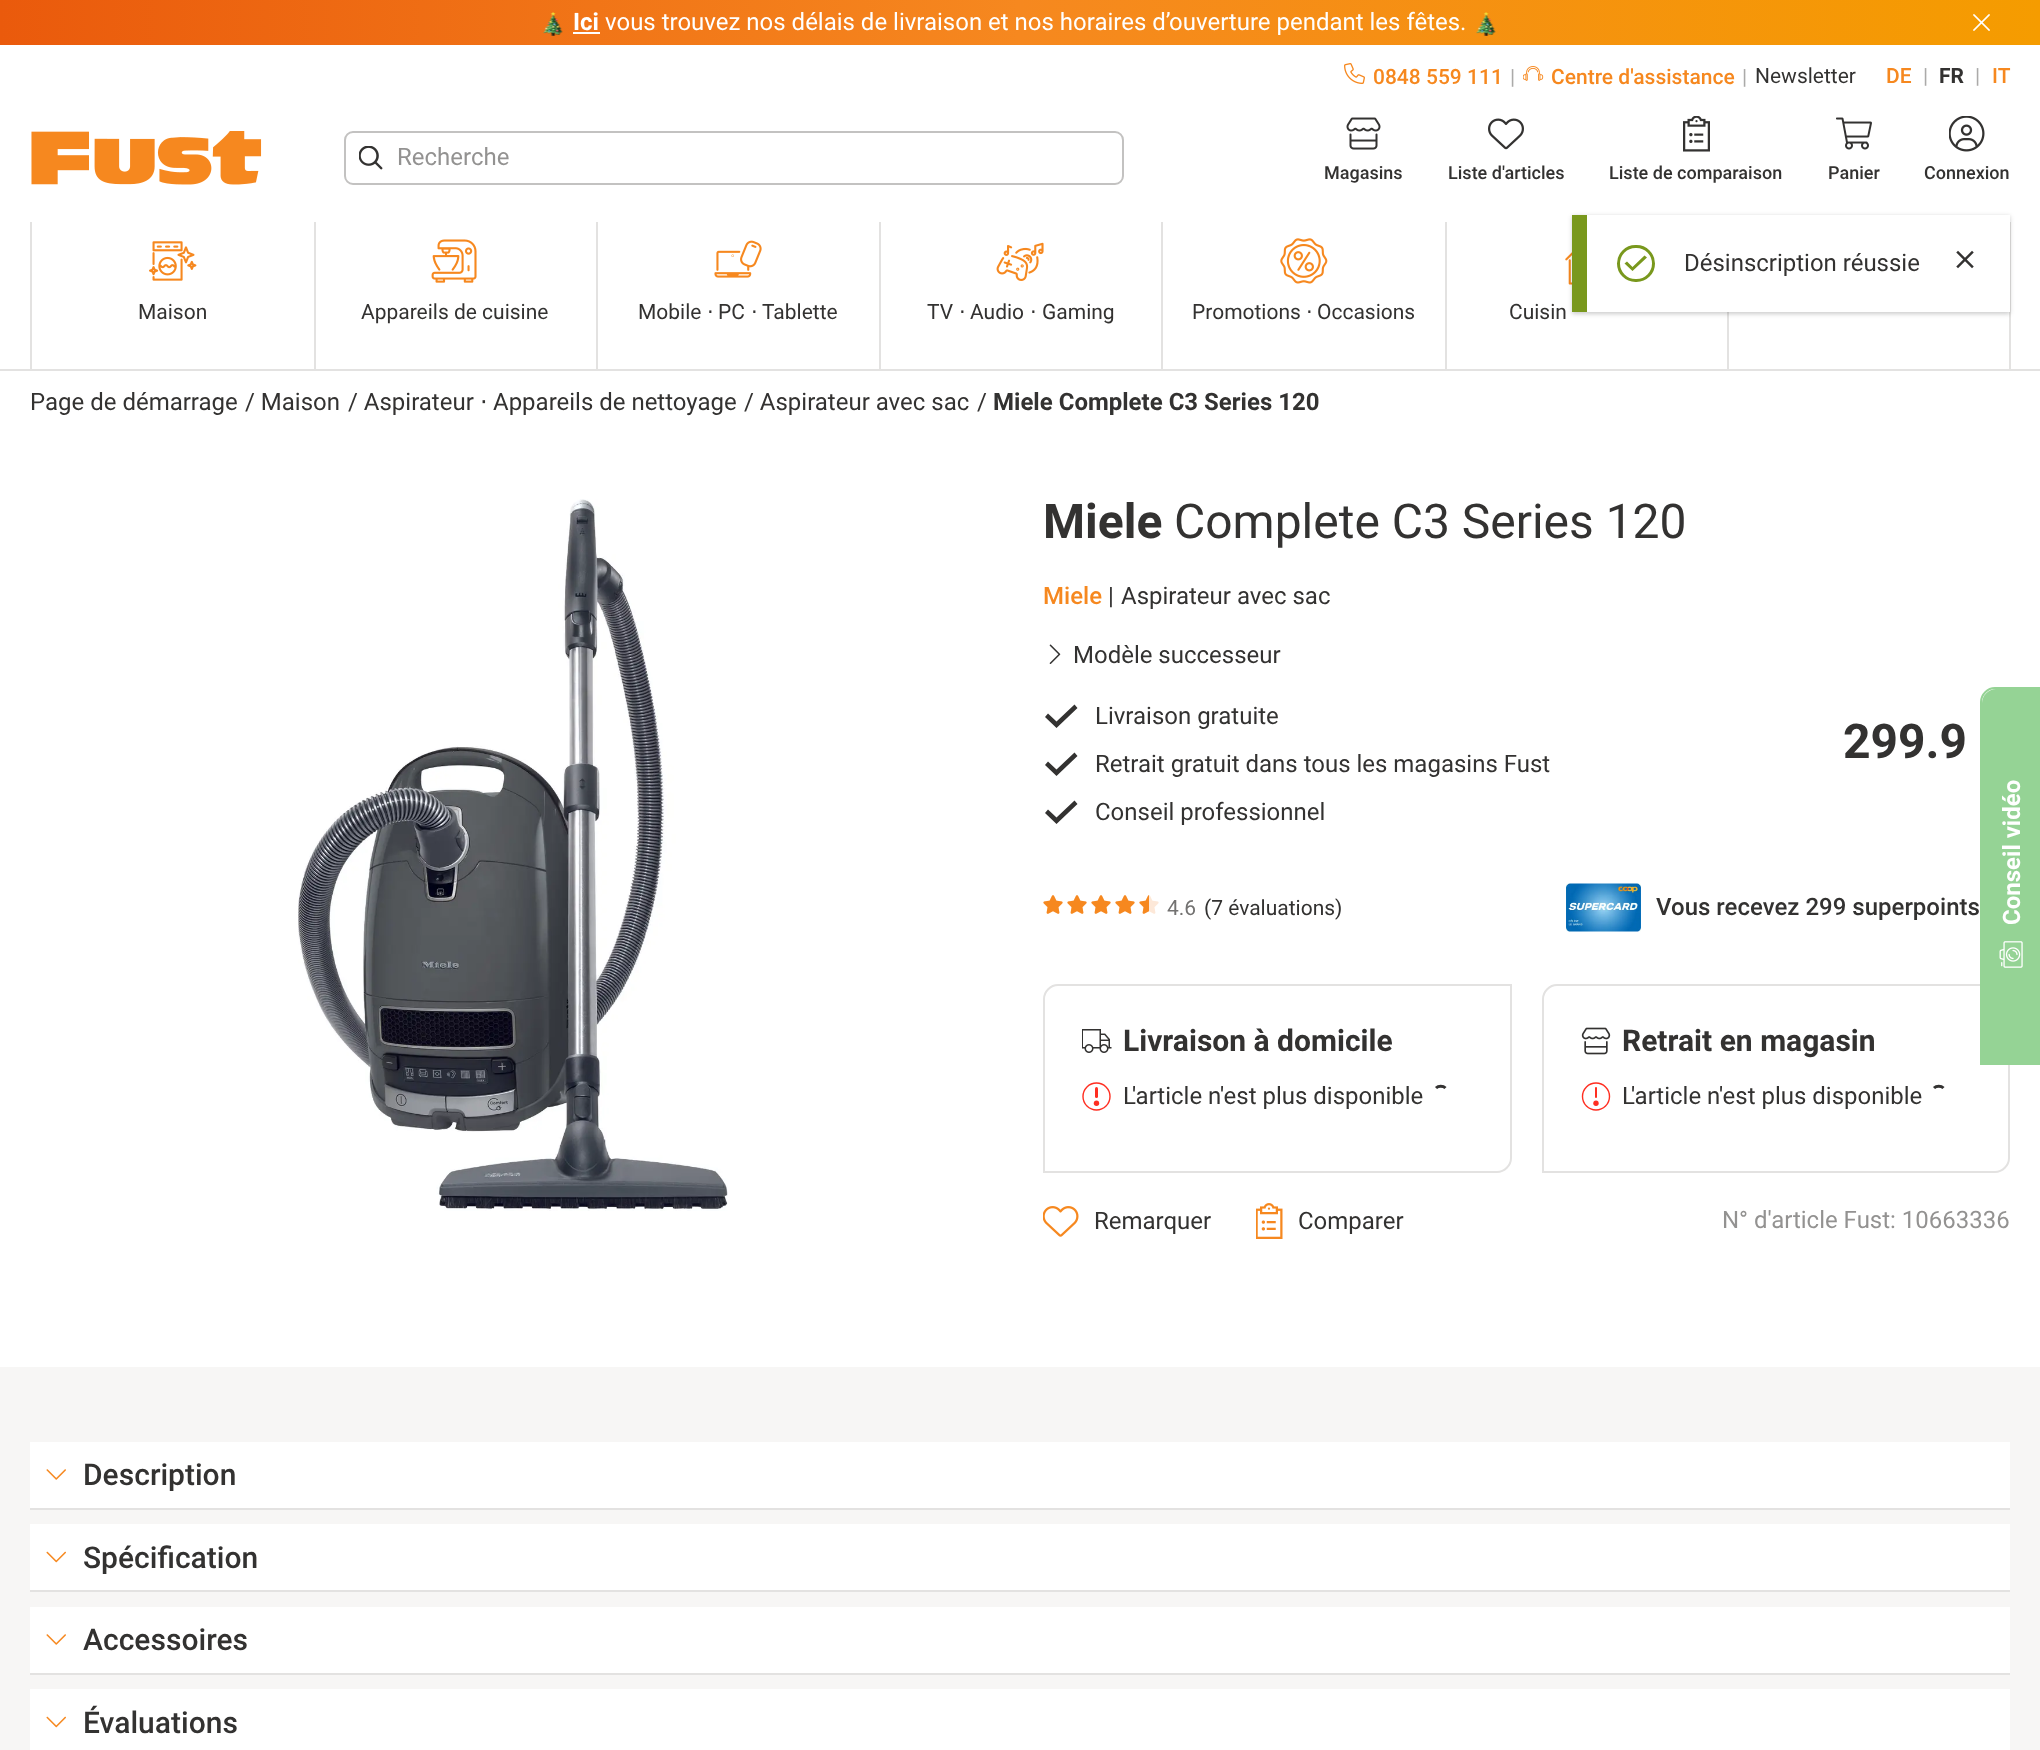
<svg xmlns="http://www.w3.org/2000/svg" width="2040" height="1750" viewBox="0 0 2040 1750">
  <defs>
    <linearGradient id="g1" gradientUnits="userSpaceOnUse" x1="0" y1="23" x2="2040" y2="22"><stop offset="0" stop-color="#ea5a0c"/><stop offset="0.5" stop-color="#f6881f"/><stop offset="1" stop-color="#f59c00"/></linearGradient>
  </defs>
  <rect width="100%" height="100%" fill="#fff"/>
  <path d="M0 0h2040v45H0z" fill="url(#g1)"/>
  <image x="543" y="12" width="20" height="24" href="img/1.png"/>
  <path d="M573 32h27v2H573z" fill="#fff"/>
  <image x="1476" y="12" width="20" height="24" href="img/2.png"/>
  <image x="1973" y="14" width="17" height="17" href="img/3.png"/>
  <image x="1344" y="63" width="21" height="21" href="img/4.png"/>
  <image x="1523" y="66" width="21" height="15" href="img/5.png"/>
  <image x="31" y="131" width="231" height="54" href="img/6.png"/>
  <rect x="345" y="132" width="778" height="52" rx="8" fill="none" stroke="#c3c2c1" stroke-width="2"/>
  <image x="359" y="146" width="24" height="24" href="img/7.png"/>
  <image x="1346" y="117" width="35" height="33" href="img/8.png"/>
  <image x="1488" y="118" width="36" height="32" href="img/9.png"/>
  <image x="1683" y="116" width="27" height="36" href="img/10.png"/>
  <image x="1836" y="117" width="36" height="33" href="img/11.png"/>
  <image x="1949" y="116" width="36" height="36" href="img/12.png"/>
  <image x="1565" y="252" width="7" height="33" href="img/19.png"/>
  <path d="M2009 222h2v147H2009z" fill="#e3e2e1"/>
  <path d="M1727 312h2v57H1727z" fill="#e3e2e1"/>
  <path d="M1572 216h438v98H1572z" fill="#00000033" filter="blur(2px)"/>
  <path d="M1587 215h423v97H1587z" fill="#fff"/>
  <path d="M1572 215h15v97H1572z" fill="#79981d"/>
  <rect x="1618.5" y="246.5" width="35" height="34" rx="17" fill="none" stroke="#79981d" stroke-width="3"/>
  <path d="M1647 257.5L1632.5 271L1624.5 263.5L1627 261.5L1632.5 267L1644.5 255.5Z" fill="#79981d"/>
  <image x="1956" y="250" width="18" height="19" href="img/13.png"/>
  <path d="M30 222h2v147H30z" fill="#e3e2e1"/>
  <image x="149" y="241" width="48" height="40" href="img/14.png"/>
  <path d="M314 222h2v147H314z" fill="#e3e2e1"/>
  <image x="431" y="239" width="46" height="44" href="img/15.png"/>
  <path d="M596 222h2v147H596z" fill="#e3e2e1"/>
  <image x="714" y="240" width="48" height="38" href="img/16.png"/>
  <path d="M879 222h2v147H879z" fill="#e3e2e1"/>
  <image x="996" y="242" width="48" height="39" href="img/17.png"/>
  <path d="M1161 222h2v147H1161z" fill="#e3e2e1"/>
  <image x="1280" y="238" width="48" height="46" href="img/18.png"/>
  <path d="M1445 222h2v147H1445z" fill="#e3e2e1"/>
  <path d="M0 369h2040v2H0z" fill="#e3e2e1"/>
  <image x="298" y="499" width="430" height="712" href="img/20.png"/>
  <image x="1049" y="644" width="12" height="20" href="img/21.png"/>
  <path d="M1077.5 708L1056.5 728L1045 717L1048 713.5L1056.5 721.5L1074.5 704.5Z" fill="#333231"/>
  <path d="M1077.5 756L1056.5 776L1045 765L1048 761.5L1056.5 769.5L1074.5 752.5Z" fill="#333231"/>
  <path d="M1077.5 804L1056.5 824L1045 813L1048 809.5L1056.5 817.5L1074.5 800.5Z" fill="#333231"/>
  <image x="1043" y="895" width="20" height="19" href="img/22.png"/>
  <image x="1067" y="895" width="20" height="19" href="img/22.png"/>
  <image x="1091" y="895" width="20" height="19" href="img/22.png"/>
  <image x="1115" y="895" width="20" height="19" href="img/22.png"/>
  <image x="1139" y="895" width="20" height="19" href="img/22.png"/>
  <image x="1043" y="895" width="20" height="19" href="img/23.png"/>
  <image x="1067" y="895" width="20" height="19" href="img/23.png"/>
  <image x="1091" y="895" width="20" height="19" href="img/23.png"/>
  <image x="1115" y="895" width="20" height="19" href="img/23.png"/>
  <image x="1139" y="895" width="10" height="19" href="img/24.png"/>
  <image x="1566" y="883" width="75" height="49" href="img/25.png"/>
  <path d="M1058 985H1511V1158C1511 1165.5 1504.5 1172 1497 1172H1044V999C1044 991.5 1050.5 985 1058 985Z" fill="none" stroke="#e3e2e1" stroke-width="2"/>
  <image x="1082" y="1029" width="30" height="24" href="img/26.png"/>
  <circle cx="1096.5" cy="1096.5" r="13.5" fill="none" stroke="#ff2e21" stroke-width="1.4"/>
  <rect x="1095" y="1087" width="3" height="11" rx="1.5" fill="#ff2e21"/>
  <circle cx="1096.5" cy="1103.3" r="2.7" fill="#ff2e21"/>
  <path d="M1436 1088C1438.5 1085.5 1443 1085.5 1445.5 1088M1436 1088C1438.5 1085.5 1443 1085.5 1445.5 1088M1436 1088C1438.5 1085.5 1443 1085.5 1445.5 1088M1436 1088C1438.5 1085.5 1443 1085.5 1445.5 1088" fill="none" stroke="#333231" stroke-width="3"/>
  <path d="M1557 985H2009V1158C2009 1165.5 2002.5 1172 1995 1172H1543V999C1543 991.5 1549.5 985 1557 985Z" fill="none" stroke="#e3e2e1" stroke-width="2"/>
  <image x="1581" y="1027" width="30" height="28" href="img/27.png"/>
  <circle cx="1596" cy="1096.5" r="13.5" fill="none" stroke="#ff2e21" stroke-width="1.4"/>
  <rect x="1595" y="1087" width="2" height="11" rx="1" fill="#ff2e21"/>
  <circle cx="1596" cy="1103.3" r="2.7" fill="#ff2e21"/>
  <path d="M1934 1088C1936.5 1085.5 1941 1085.5 1943.5 1088M1934 1088C1936.5 1085.5 1941 1085.5 1943.5 1088M1934 1088C1936.5 1085.5 1941 1085.5 1943.5 1088M1934 1088C1936.5 1085.5 1941 1085.5 1943.5 1088" fill="none" stroke="#333231" stroke-width="3"/>
  <image x="1043" y="1206" width="36" height="31" href="img/28.png"/>
  <image x="1256" y="1203" width="27" height="36" href="img/29.png"/>
  <path d="M0 1367h2040v383H0z" fill="#f7f6f5"/>
  <path d="M30 1442h1980v66H30z" fill="#fff"/>
  <path d="M30 1508h1980v2H30z" fill="#e3e2e1"/>
  <image x="46" y="1469" width="20" height="11" href="img/30.png"/>
  <path d="M30 1524h1980v66H30z" fill="#fff"/>
  <path d="M30 1590h1980v2H30z" fill="#e3e2e1"/>
  <image x="46" y="1551" width="20" height="12" href="img/31.png"/>
  <path d="M30 1607h1980v66H30z" fill="#fff"/>
  <path d="M30 1673h1980v2H30z" fill="#e3e2e1"/>
  <image x="46" y="1634" width="20" height="11" href="img/30.png"/>
  <path d="M30 1689h1980v61H30z" fill="#fff"/>
  <image x="46" y="1716" width="20" height="12" href="img/31.png"/>
  <path d="M1995 688H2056V1050C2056 1057.5 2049.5 1064 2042 1064H1981V702C1981 694.5 1987.5 688 1995 688Z" fill="#fff" stroke="#95d395" stroke-width="2"/>
  <path d="M1996 689H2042V1064H1982V703C1982 695.5 1988.5 689 1996 689Z" fill="#95d395"/>
  <image x="1999" y="941" width="24" height="27" href="img/32.png"/>
  <text x="573" y="30" font-family="Roboto" font-size="24" font-weight="bold" fill="#fff">Ici</text>
  <text x="605" y="30" font-family="Roboto" font-size="24" fill="#fff">vous trouvez nos délais de livraison et nos horaires d’ouverture pendant les fêtes.</text>
  <text x="1373" y="84" font-family="Roboto" font-size="21" font-weight="500" fill="#f6881f">0848 559 111</text>
  <text x="1510" y="84" font-family="Roboto" font-size="21" fill="#abaaa9">|</text>
  <text x="1551" y="84" font-family="Roboto" font-size="21" font-weight="500" fill="#f6881f">Centre d'assistance</text>
  <text x="1742" y="84" font-family="Roboto" font-size="21" fill="#abaaa9">|</text>
  <text x="1755" y="83" font-family="Roboto" font-size="21" fill="#333231">Newsletter</text>
  <text x="1886" y="83" font-family="Roboto" font-size="21" font-weight="500" fill="#f6881f">DE</text>
  <text x="1923" y="83" font-family="Roboto" font-size="21" fill="#abaaa9">|</text>
  <text x="1939" y="83" font-family="Roboto" font-size="21" font-weight="bold" fill="#333231">FR</text>
  <text x="1975" y="83" font-family="Roboto" font-size="21" fill="#abaaa9">|</text>
  <text x="1992" y="83" font-family="Roboto" font-size="21" font-weight="500" fill="#f6881f">IT</text>
  <text x="397" y="165" font-family="Roboto" font-size="24" fill="#939291">Recherche</text>
  <g font-family="Roboto" font-size="18" font-weight="500" fill="#333231">
    <text x="1324" y="179">Magasins</text>
    <text x="1448" y="179">Liste d'articles</text>
    <text x="1609" y="179">Liste de comparaison</text>
    <text x="1828" y="179">Panier</text>
    <text x="1924" y="179">Connexion</text>
  </g>
  <text x="1684" y="271" font-family="Roboto" font-size="24" fill="#333231">Désinscription réussie</text>
  <g font-family="Roboto" font-size="21" fill="#333231">
    <text x="138" y="319">Maison</text>
    <text x="361" y="319">Appareils de cuisine</text>
    <text x="638" y="319">Mobile</text>
  </g>
  <text x="707" y="319" font-family="DejaVu Sans" font-size="21" fill="#333231">⋅</text>
  <text x="718" y="319" font-family="Roboto" font-size="21" fill="#333231">PC</text>
  <text x="751" y="319" font-family="DejaVu Sans" font-size="21" fill="#333231">⋅</text>
  <g font-family="Roboto" font-size="21" fill="#333231">
    <text x="762" y="319">Tablette</text>
    <text x="927" y="319">TV</text>
  </g>
  <text x="959" y="319" font-family="DejaVu Sans" font-size="21" fill="#333231">⋅</text>
  <text x="970" y="319" font-family="Roboto" font-size="21" fill="#333231">Audio</text>
  <text x="1030" y="319" font-family="DejaVu Sans" font-size="21" fill="#333231">⋅</text>
  <g font-family="Roboto" font-size="21" fill="#333231">
    <text x="1042" y="319">Gaming</text>
    <text x="1192" y="319">Promotions</text>
  </g>
  <text x="1306" y="319" font-family="DejaVu Sans" font-size="21" fill="#333231">⋅</text>
  <g font-family="Roboto" font-size="21" fill="#333231">
    <text x="1317" y="319">Occasions</text>
    <text x="1509" y="319">Cuisin</text>
  </g>
  <g font-family="Roboto" font-size="24" fill="#333231">
    <text x="30" y="410">Page de démarrage</text>
    <text x="245" y="410">/ Maison</text>
    <text x="348" y="410">/ Aspirateur</text>
  </g>
  <text x="480" y="410" font-family="DejaVu Sans" font-size="24" fill="#333231">⋅</text>
  <g font-family="Roboto" font-size="24" fill="#333231">
    <text x="493" y="410">Appareils de nettoyage</text>
    <text x="744" y="410">/ Aspirateur avec sac</text>
    <text x="977" y="410">/</text>
  </g>
  <text x="993" y="410" font-family="Roboto" font-size="24" font-weight="bold" fill="#333231">Miele Complete C3 Series 120</text>
  <text x="1043" y="538" font-family="Roboto" font-size="48" font-weight="bold" fill="#333231">Miele</text>
  <text x="1174" y="538" font-family="Roboto" font-size="48" fill="#333231">Complete C3 Series 120</text>
  <text x="1043" y="604" font-family="Roboto" font-size="24" font-weight="500" fill="#f6881f">Miele</text>
  <g font-family="Roboto" font-size="24" fill="#333231">
    <text x="1108" y="604">|</text>
    <text x="1121" y="604">Aspirateur avec sac</text>
    <text x="1073" y="663">Modèle successeur</text>
    <text x="1095" y="724">Livraison gratuite</text>
    <text x="1095" y="772">Retrait gratuit dans tous les magasins Fust</text>
    <text x="1095" y="820">Conseil professionnel</text>
  </g>
  <text x="1843" y="758" font-family="Roboto" font-size="48" font-weight="bold" fill="#333231">299.9</text>
  <text x="1167" y="915" font-family="Roboto" font-size="21" fill="#737271">4.6</text>
  <text x="1204" y="915" font-family="Roboto" font-size="21" fill="#333231">(7 évaluations)</text>
  <text x="1656" y="915" font-family="Roboto" font-size="24" font-weight="500" fill="#333231">Vous recevez 299 superpoints</text>
  <text x="1123" y="1051" font-family="Roboto" font-size="30" font-weight="bold" fill="#333231">Livraison à domicile</text>
  <text x="1123" y="1104" font-family="Roboto" font-size="24" fill="#333231">L'article n'est plus disponible</text>
  <text x="1622" y="1051" font-family="Roboto" font-size="30" font-weight="bold" fill="#333231">Retrait en magasin</text>
  <g font-family="Roboto" font-size="24" fill="#333231">
    <text x="1622" y="1104">L'article n'est plus disponible</text>
    <text x="1094" y="1229">Remarquer</text>
    <text x="1298" y="1229">Comparer</text>
  </g>
  <text x="1722" y="1228" font-family="Roboto" font-size="24" fill="#939291">N° d'article Fust: 10663336</text>
  <g font-family="Roboto" font-size="30" font-weight="500" fill="#333231">
    <text x="83" y="1485">Description</text>
    <text x="83" y="1568">Spécification</text>
    <text x="83" y="1650">Accessoires</text>
    <text x="83" y="1733">Évaluations</text>
  </g>
  <text x="2020" y="925" transform="rotate(-90 2020 925)" font-family="Roboto" font-size="24" font-weight="bold" fill="#fff">Conseil vidéo</text>
</svg>
